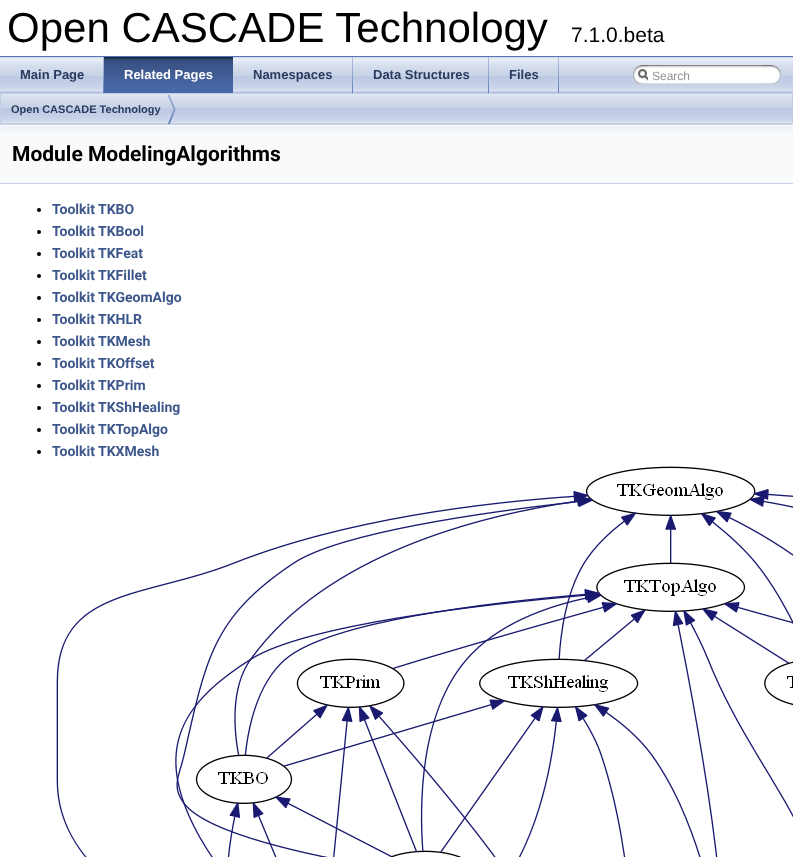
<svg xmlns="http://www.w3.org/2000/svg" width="793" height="857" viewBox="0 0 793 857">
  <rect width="100%" height="100%" fill="#fff"/>
  <path d="M0 56h793v1H0z" fill="#5373b4"/>
  <image x="0" y="57" width="793" height="36" href="img/1.png"/>
  <image x="103" y="57" width="1" height="36" href="img/2.png"/>
  <image x="104" y="57" width="129" height="36" href="img/3.png"/>
  <image x="352" y="57" width="1" height="36" href="img/2.png"/>
  <image x="488" y="57" width="1" height="36" href="img/2.png"/>
  <image x="558" y="57" width="1" height="36" href="img/2.png"/>
  <image x="633" y="65" width="15" height="19" href="img/4.png"/>
  <image x="638" y="69" width="10" height="12" href="img/5.png"/>
  <image x="648" y="65" width="115" height="19" href="img/6.png"/>
  <image x="763" y="65" width="18" height="19" href="img/7.png"/>
  <image x="1" y="94" width="791" height="30" href="img/8.png"/>
  <path d="M0.5 93.5h792v31H0.5z" fill="none" stroke="#c2cde4"/>
  <image x="168" y="95" width="8" height="29" href="img/9.png"/>
  <path d="M0 133h793v50H0z" fill="#f9fafc"/>
  <image x="0" y="125" width="793" height="8" href="img/10.png"/>
  <path d="M0 183h793v1H0z" fill="#c4cfe5"/>
  <circle cx="39" cy="210" r="2" fill="#000"/>
  <circle cx="39" cy="232" r="2" fill="#000"/>
  <circle cx="39" cy="254" r="2" fill="#000"/>
  <circle cx="39" cy="276" r="2" fill="#000"/>
  <circle cx="39" cy="298" r="2" fill="#000"/>
  <circle cx="39" cy="320" r="2" fill="#000"/>
  <circle cx="39" cy="342" r="2" fill="#000"/>
  <circle cx="39" cy="364" r="2" fill="#000"/>
  <circle cx="39" cy="386" r="2" fill="#000"/>
  <circle cx="39" cy="408" r="2" fill="#000"/>
  <circle cx="39" cy="430" r="2" fill="#000"/>
  <circle cx="39" cy="452" r="2" fill="#000"/>
  <image x="56" y="466" width="737" height="391" href="img/11.png"/>
  <text x="7" y="42" font-family="Liberation Sans" font-size="42" fill="#000">Open CASCADE Technology</text>
  <text x="571" y="42" font-family="Liberation Sans" font-size="21" fill="#000">7.1.0.beta</text>
  <text x="20" y="79" font-family="Liberation Sans" font-size="13" font-weight="bold" fill="#283a5d">Main Page</text>
  <text x="124" y="79" font-family="Liberation Sans" font-size="13" font-weight="bold" fill="#fff">Related Pages</text>
  <g font-family="Liberation Sans" font-size="13" font-weight="bold" fill="#283a5d">
    <text x="253" y="79">Namespaces</text>
    <text x="373" y="79">Data Structures</text>
    <text x="509" y="79">Files</text>
  </g>
  <text x="652" y="80" font-family="Liberation Sans" font-size="12" fill="#909090">Search</text>
  <text x="11" y="113" font-family="Liberation Sans" font-size="11" font-weight="bold" fill="#283a5d">Open CASCADE Technology</text>
  <text x="12" y="161" font-family="Roboto" font-size="21" font-weight="bold" fill="#000">Module ModelingAlgorithms</text>
  <g font-family="Roboto" font-size="14" font-weight="bold" fill="#3d578c">
    <text x="52" y="214">Toolkit TKBO</text>
    <text x="52" y="236">Toolkit TKBool</text>
    <text x="52" y="258">Toolkit TKFeat</text>
    <text x="52" y="280">Toolkit TKFillet</text>
    <text x="52" y="302">Toolkit TKGeomAlgo</text>
    <text x="52" y="324">Toolkit TKHLR</text>
    <text x="52" y="346">Toolkit TKMesh</text>
    <text x="52" y="368">Toolkit TKOffset</text>
    <text x="52" y="390">Toolkit TKPrim</text>
    <text x="52" y="412">Toolkit TKShHealing</text>
    <text x="52" y="434">Toolkit TKTopAlgo</text>
    <text x="52" y="456">Toolkit TKXMesh</text>
  </g>
</svg>
